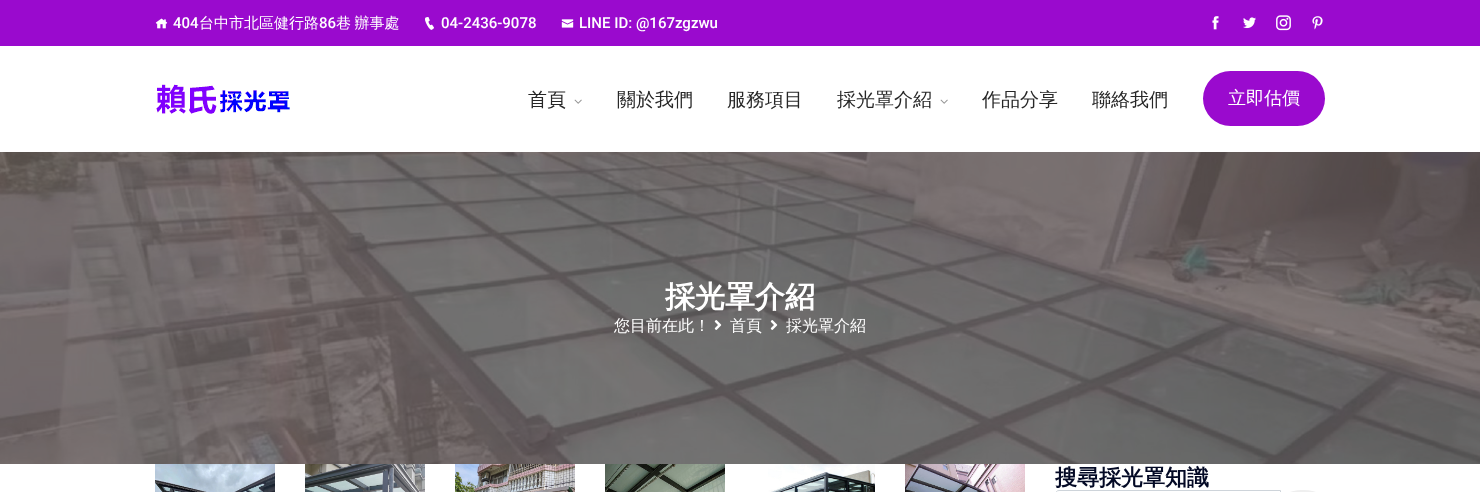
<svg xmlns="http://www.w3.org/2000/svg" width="1480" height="492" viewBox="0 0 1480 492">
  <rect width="100%" height="100%" fill="#fff"/>
  <path d="M0 0h1480v46H0z" fill="#9a0ace"/>
  <image x="155" y="18" width="13" height="11" href="img/1.png"/>
  <image x="425" y="17" width="9" height="13" href="img/2.png"/>
  <image x="561" y="19" width="13" height="9" href="img/3.png"/>
  <image x="1212" y="16" width="7" height="14" href="img/4.png"/>
  <image x="1243" y="17" width="13" height="12" href="img/5.png"/>
  <image x="1276" y="15" width="15" height="16" href="img/6.png"/>
  <image x="1312" y="16" width="11" height="14" href="img/7.png"/>
  <image x="156" y="84" width="134" height="30" href="img/8.png"/>
  <image x="574" y="99" width="8" height="5" href="img/9.png"/>
  <image x="940" y="99" width="8" height="5" href="img/9.png"/>
  <rect x="1203" y="71" width="122" height="55" rx="27.5" fill="#9a0ace"/>
  <image x="0" y="152" width="1480" height="312" href="img/10.png"/>
  <image x="714" y="320" width="8" height="10" href="img/11.png"/>
  <image x="770" y="320" width="8" height="10" href="img/12.png"/>
  <image x="155" y="464" width="120" height="28" href="img/13.png"/>
  <image x="305" y="464" width="120" height="28" href="img/14.png"/>
  <image x="455" y="464" width="120" height="28" href="img/15.png"/>
  <image x="605" y="464" width="120" height="28" href="img/16.png"/>
  <image x="768" y="464" width="107" height="28" href="img/17.png"/>
  <image x="905" y="464" width="120" height="28" href="img/18.png"/>
  <path d="M1059 490.5H1280.5V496.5H1059C1057 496.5 1055.5 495 1055.5 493V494C1055.5 492 1057 490.5 1059 490.5Z" fill="none" stroke="#ced4da"/>
  <rect x="1281" y="490" width="44" height="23" rx="20.5" fill="#efefef"/>
  <text x="173" y="28" font-family="Roboto" font-size="15" font-weight="500" fill="#fff">404</text>
  <text x="199" y="28" font-family="WenQuanYi Zen Hei" font-size="15" font-weight="500" fill="#fff">台中市北區健行路</text>
  <text x="319" y="28" font-family="Roboto" font-size="15" font-weight="500" fill="#fff">86</text>
  <text x="336" y="28" word-spacing="-1" font-family="WenQuanYi Zen Hei" font-size="15" font-weight="500" fill="#fff">巷 辦事處</text>
  <g font-family="Roboto" font-size="15" font-weight="500" fill="#fff">
    <text x="441" y="28">04-2436-9078</text>
    <text x="579" y="28">LINE ID: @167zgzwu</text>
  </g>
  <g font-family="WenQuanYi Zen Hei" font-size="19" font-weight="500" fill="#272727">
    <text x="528" y="106">首頁</text>
    <text x="617" y="106">關於我們</text>
    <text x="727" y="106">服務項目</text>
    <text x="837" y="106">採光罩介紹</text>
    <text x="982" y="106">作品分享</text>
    <text x="1092" y="106">聯絡我們</text>
  </g>
  <text x="1228" y="104" font-family="WenQuanYi Zen Hei" font-size="18" font-weight="500" fill="#fff">立即估價</text>
  <text x="665" y="307" font-family="WenQuanYi Zen Hei" font-size="30" font-weight="bold" fill="#fff">採光罩介紹</text>
  <g font-family="WenQuanYi Zen Hei" font-size="16" font-weight="500" fill="#fff">
    <text x="614" y="331">您目前在此！</text>
    <text x="730" y="331">首頁</text>
    <text x="786" y="331">採光罩介紹</text>
  </g>
  <text x="1055" y="485" font-family="WenQuanYi Zen Hei" font-size="22" font-weight="bold" fill="#030925">搜尋採光罩知識</text>
</svg>
